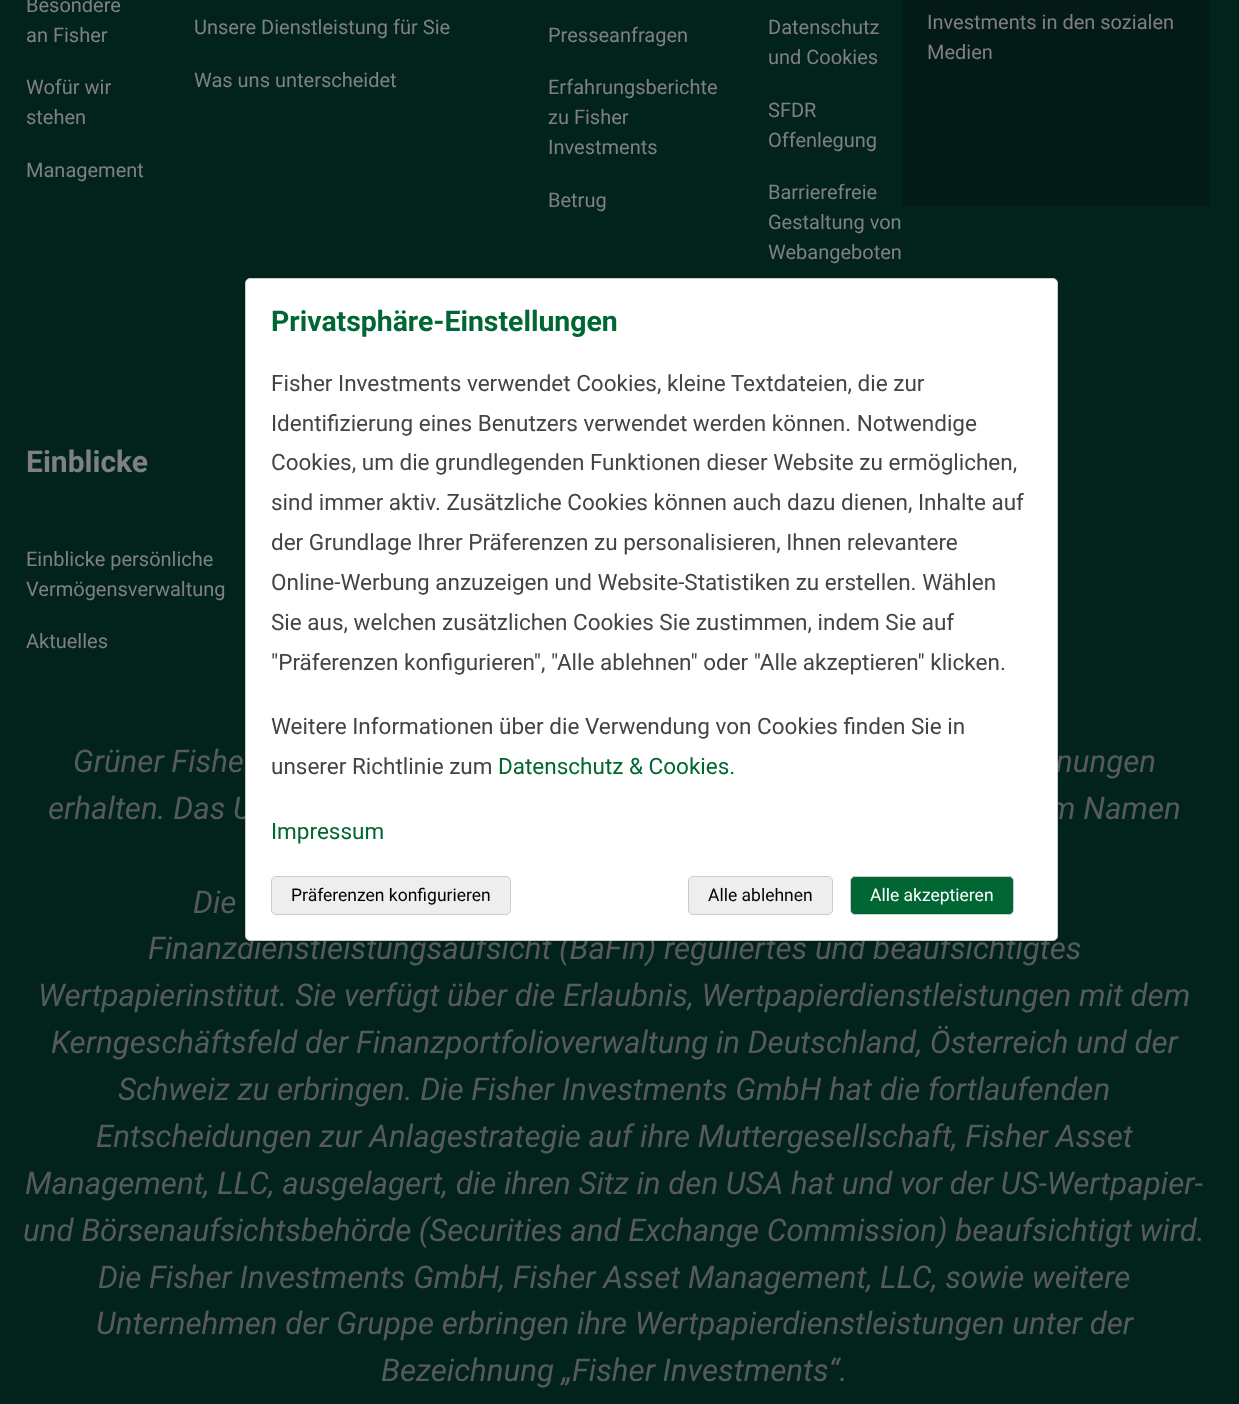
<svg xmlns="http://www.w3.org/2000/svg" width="1239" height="1404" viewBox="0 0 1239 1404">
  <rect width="100%" height="100%" fill="#02231c"/>
  <path d="M903 0h306v206H903z" fill="#041a16"/>
  <g font-family="Roboto" font-size="20" fill="#808080">
    <text x="26" y="12">Besondere</text>
    <text x="26" y="42">an Fisher</text>
    <text x="26" y="94">Wofür wir</text>
    <text x="26" y="124">stehen</text>
    <text x="26" y="177">Management</text>
    <text x="194" y="34">Unsere Dienstleistung für Sie</text>
    <text x="194" y="87">Was uns unterscheidet</text>
    <text x="548" y="42">Presseanfragen</text>
    <text x="548" y="94">Erfahrungsberichte</text>
    <text x="548" y="124">zu Fisher</text>
    <text x="548" y="154">Investments</text>
    <text x="548" y="207">Betrug</text>
    <text x="768" y="34">Datenschutz</text>
    <text x="768" y="64">und Cookies</text>
    <text x="768" y="117">SFDR</text>
    <text x="768" y="147">Offenlegung</text>
    <text x="768" y="199">Barrierefreie</text>
    <text x="768" y="229">Gestaltung von</text>
    <text x="768" y="259">Webangeboten</text>
  </g>
  <text x="26" y="472" font-family="Roboto" font-size="30" font-weight="bold" fill="#808080">Einblicke</text>
  <g font-family="Roboto" font-size="20" fill="#808080">
    <text x="26" y="566">Einblicke persönliche</text>
    <text x="26" y="596">Vermögensverwaltung</text>
    <text x="26" y="648">Aktuelles</text>
    <text x="927" y="29">Investments in den sozialen</text>
    <text x="927" y="59">Medien</text>
  </g>
  <g font-family="Roboto" font-size="31.25" font-style="italic" fill="#575a5b">
    <text x="73" y="772">Grüner Fishe</text>
    <text x="1056" y="772">nungen</text>
    <text x="48" y="819">erhalten. Das U</text>
    <text x="1049" y="819">m Namen</text>
    <text x="193" y="913">Die</text>
    <text x="148" y="959">Finanzdienstleistungsaufsicht (BaFin) reguliertes und beaufsichtigtes</text>
    <text x="38" y="1006">Wertpapierinstitut. Sie verfügt über die Erlaubnis, Wertpapierdienstleistungen mit dem</text>
    <text x="51" y="1053">Kerngeschäftsfeld der Finanzportfolioverwaltung in Deutschland, Österreich und der</text>
    <text x="118" y="1100">Schweiz zu erbringen. Die Fisher Investments GmbH hat die fortlaufenden</text>
    <text x="96" y="1147">Entscheidungen zur Anlagestrategie auf ihre Muttergesellschaft, Fisher Asset</text>
    <text x="25" y="1194">Management, LLC, ausgelagert, die ihren Sitz in den USA hat und vor der US-Wertpapier-</text>
    <text x="23" y="1241">und Börsenaufsichtsbehörde (Securities and Exchange Commission) beaufsichtigt wird.</text>
    <text x="98" y="1288">Die Fisher Investments GmbH, Fisher Asset Management, LLC, sowie weitere</text>
    <text x="96" y="1334">Unternehmen der Gruppe erbringen ihre Wertpapierdienstleistungen unter der</text>
    <text x="381" y="1381">Bezeichnung „Fisher Investments“.</text>
  </g>
  <rect x="245.5" y="278.5" width="812" height="662" rx="4.5" fill="#fff" stroke="#ccc"/>
  <text x="271" y="331" font-family="Roboto" font-size="28.4" font-weight="bold" fill="#063">Privatsphäre-Einstellungen</text>
  <g font-family="Roboto" font-size="22.5" fill="#444">
    <text x="271" y="391">Fisher Investments verwendet Cookies, kleine Textdateien, die zur</text>
    <text x="271" y="431">Identifizierung eines Benutzers verwendet werden können. Notwendige</text>
    <text x="271" y="470">Cookies, um die grundlegenden Funktionen dieser Website zu ermöglichen,</text>
    <text x="271" y="510">sind immer aktiv. Zusätzliche Cookies können auch dazu dienen, Inhalte auf</text>
    <text x="271" y="550">der Grundlage Ihrer Präferenzen zu personalisieren, Ihnen relevantere</text>
    <text x="271" y="590">Online-Werbung anzuzeigen und Website-Statistiken zu erstellen. Wählen</text>
    <text x="271" y="630">Sie aus, welchen zusätzlichen Cookies Sie zustimmen, indem Sie auf</text>
    <text x="271" y="670">"Präferenzen konfigurieren", "Alle ablehnen" oder "Alle akzeptieren" klicken.</text>
    <text x="271" y="734">Weitere Informationen über die Verwendung von Cookies finden Sie in</text>
    <text x="271" y="774">unserer Richtlinie zum</text>
  </g>
  <g font-family="Roboto" font-size="22.5" fill="#063">
    <text x="498" y="774">Datenschutz &amp; Cookies.</text>
    <text x="271" y="839">Impressum</text>
  </g>
  <rect x="271.5" y="876.5" width="239" height="38" rx="4.5" fill="#eee" stroke="#ccc"/>
  <text x="291" y="901" font-family="Roboto" font-size="17.5" fill="#000">Präferenzen konfigurieren</text>
  <rect x="688.5" y="876.5" width="144" height="38" rx="4.5" fill="#eee" stroke="#ccc"/>
  <text x="708" y="901" font-family="Roboto" font-size="17.5" fill="#000">Alle ablehnen</text>
  <rect x="850.5" y="876.5" width="163" height="38" rx="4.5" fill="#063" stroke="#ccc"/>
  <text x="870" y="901" font-family="Roboto" font-size="17.5" fill="#fff">Alle akzeptieren</text>
</svg>
